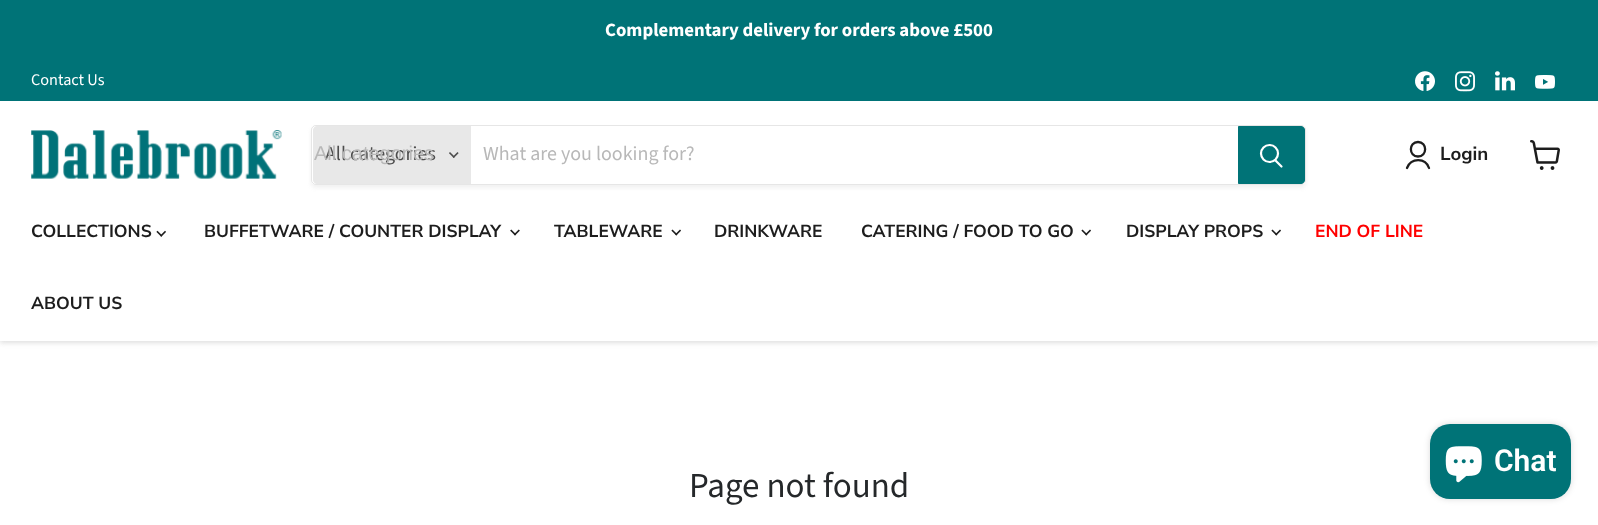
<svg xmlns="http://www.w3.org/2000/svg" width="1598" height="525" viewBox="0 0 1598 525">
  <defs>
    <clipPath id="clip1"><path d="M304 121H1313V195H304ZM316 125H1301C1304 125 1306 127 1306 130V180C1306 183 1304 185 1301 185H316C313 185 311 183 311 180V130C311 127 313 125 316 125Z" clip-rule="evenodd"/></clipPath>
  </defs>
  <rect width="100%" height="100%" fill="#fff"/>
  <path d="M0 103h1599v240H0z" fill="#80808040" filter="blur(2.5px)"/>
  <path d="M0 0h1598v101H0z" fill="#007377"/>
  <image x="1415" y="71" width="20" height="20" href="img/1.png"/>
  <image x="1455" y="71" width="20" height="21" href="img/2.png"/>
  <image x="1495" y="71" width="20" height="20" href="img/3.png"/>
  <image x="1535" y="75" width="20" height="14" href="img/4.png"/>
  <path d="M0 101h1598v240H0z" fill="#fff"/>
  <image x="31" y="130" width="251" height="49" href="img/5.png"/>
  <g clip-path="url(#clip1)">
    <rect x="311" y="128" width="995" height="60" rx="5" fill="#8080801c" filter="blur(2px)"/>
  </g>
  <rect x="311.5" y="125.5" width="994" height="59" rx="4.5" fill="none" stroke="#80808033"/>
  <path d="M317 126H471V184H317C315 184 313 182 313 180V130C313 128 315 126 317 126Z" fill="#e8e8e8"/>
  <image x="449" y="152" width="10" height="6" href="img/6.png"/>
  <path d="M1238.5 126.5H1301C1303 126.5 1304.5 128 1304.5 130V180C1304.5 182 1303 183.5 1301 183.5H1238.5Z" fill="#007377" stroke="#007377"/>
  <path d="M1281.5 166.5L1275.5 160.5" fill="none" stroke="#fff" stroke-width="2.2" stroke-linecap="round"/>
  <circle cx="1269.5" cy="153.5" r="8.5" fill="none" stroke="#fff" stroke-width="2.2"/>
  <path d="M1418 156.5C1427.5 156.5 1427.5 142 1418 142C1408.5 142 1408.5 156.5 1418 156.5ZM1429 168C1425.5 157.5 1411 157.5 1407 168" fill="none" stroke="#1d1d1d" stroke-width="2.3" stroke-linecap="round" stroke-linejoin="round"/>
  <image x="1530" y="140" width="30" height="30" href="img/7.png"/>
  <image x="156" y="230" width="10" height="7" href="img/8.png"/>
  <image x="510" y="229" width="10" height="7" href="img/9.png"/>
  <image x="671" y="229" width="10" height="7" href="img/10.png"/>
  <image x="1081" y="229" width="10" height="7" href="img/10.png"/>
  <image x="1271" y="229" width="10" height="7" href="img/10.png"/>
  <rect x="1430" y="424" width="141" height="75" rx="20" fill="#00000026" filter="blur(3px)"/>
  <rect x="1430" y="424" width="141" height="75" rx="20" fill="#007377"/>
  <image x="1445" y="446" width="37" height="37" href="img/11.png"/>
  <text x="605" y="36" font-family="Source Sans Pro" font-size="18.75" font-weight="bold" fill="#fff">Complementary delivery for orders above £500</text>
  <text x="31" y="85" font-family="Source Sans Pro" font-size="16.25" fill="#fff">Contact Us</text>
  <text x="325" y="160" font-family="Source Sans Pro" font-size="20" fill="#4d4d4d">All categories</text>
  <text x="314" y="160" font-family="Liberation Sans" font-size="20" fill="#b8b8b8">All categories</text>
  <text x="483" y="160" font-family="Source Sans Pro" font-size="20" fill="#b8b8b8">What are you looking for?</text>
  <text x="1440" y="160" font-family="Nunito Sans" font-size="18.75" font-weight="bold" fill="#1d1d1d">Login</text>
  <g font-family="Nunito Sans" font-size="17.5" font-weight="bold" fill="#1d1d1d">
    <text x="31" y="237">COLLECTIONS</text>
    <text x="204" y="237">BUFFETWARE / COUNTER DISPLAY</text>
    <text x="554" y="237">TABLEWARE</text>
    <text x="714" y="237">DRINKWARE</text>
    <text x="861" y="237">CATERING / FOOD TO GO</text>
    <text x="1126" y="237">DISPLAY PROPS</text>
  </g>
  <text x="1315" y="237" font-family="Nunito Sans" font-size="17.5" font-weight="bold" fill="#f00">END OF LINE</text>
  <text x="31" y="309" font-family="Nunito Sans" font-size="17.5" font-weight="bold" fill="#1d1d1d">ABOUT US</text>
  <text x="1494" y="471" font-family="Roboto" font-size="30" font-weight="600" fill="#fff">Chat</text>
  <text x="689" y="497" font-family="Source Sans Pro" font-size="35" fill="#25282a">Page not found</text>
</svg>
